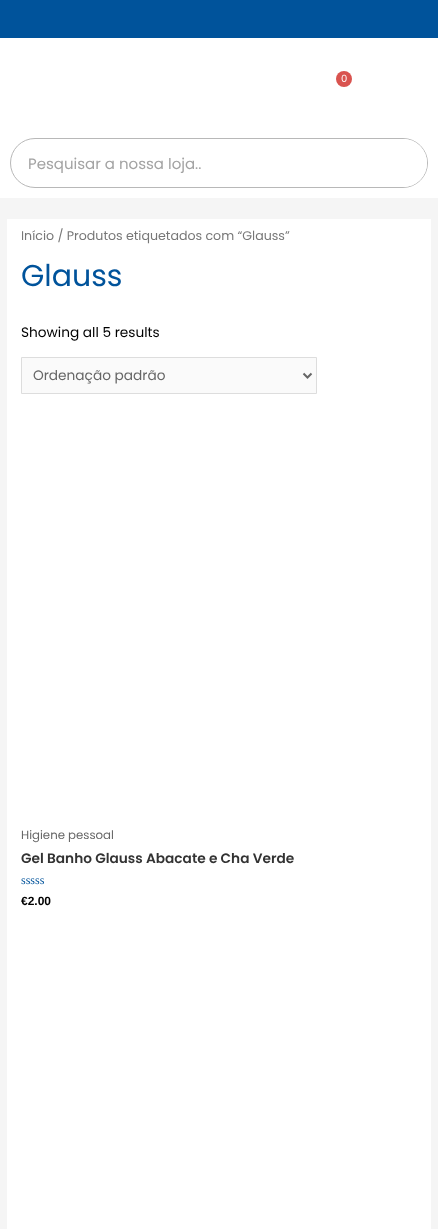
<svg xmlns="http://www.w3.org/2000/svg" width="438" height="1229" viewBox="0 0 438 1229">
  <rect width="100%" height="100%" fill="#f5f5f5"/>
  <path d="M0 0h438v38H0z" fill="#00539b"/>
  <path d="M0 38h438v160H0z" fill="#fff"/>
  <circle cx="344" cy="79" r="8" fill="#d9534f"/>
  <rect x="10.5" y="138.5" width="417" height="49" rx="24.5" fill="none" stroke="#b8b8b8"/>
  <path d="M377 139H403C416.5 139 427 149.5 427 163C427 176.5 416.5 187 403 187H377Z" fill="#fff"/>
  <path d="M7 219h424v1010H7z" fill="#fff"/>
  <path d="M21.5 357.5h295v36H21.5z" fill="#fafafa" stroke="#ddd"/>
  <path d="M303.5 373.5L307.5 377.5L311.5 373.5" fill="none" stroke="#666" stroke-width="2"/>
  <text x="341" y="82" font-family="Poppins" font-size="10" fill="#fff">0</text>
  <text x="28" y="169" font-family="Poppins" font-size="15" fill="#a3a3a3">Pesquisar a nossa loja..</text>
  <text x="21" y="240" font-family="Poppins" font-size="12.6" fill="#777">Início / Produtos etiquetados com “Glauss”</text>
  <text x="21" y="286" font-family="Poppins" font-size="30" fill="#00539b">Glauss</text>
  <text x="21" y="337" font-family="Poppins" font-size="13.7" fill="#000">Showing all 5 results</text>
  <text x="33" y="380" font-family="Poppins" font-size="13.7" fill="#666">Ordenação padrão</text>
  <text x="21" y="839" font-family="Poppins" font-size="11.75" fill="#666">Higiene pessoal</text>
  <text x="21" y="863" font-family="Poppins" font-size="13.7" font-weight="600" fill="#333">Gel Banho Glauss Abacate e Cha Verde</text>
  <text x="21" y="884" font-family="Liberation Serif" font-size="12" fill="#00539b">sssss</text>
  <text x="21" y="905" font-family="Liberation Sans" font-size="12" font-weight="bold" fill="#000">€2.00</text>
</svg>
